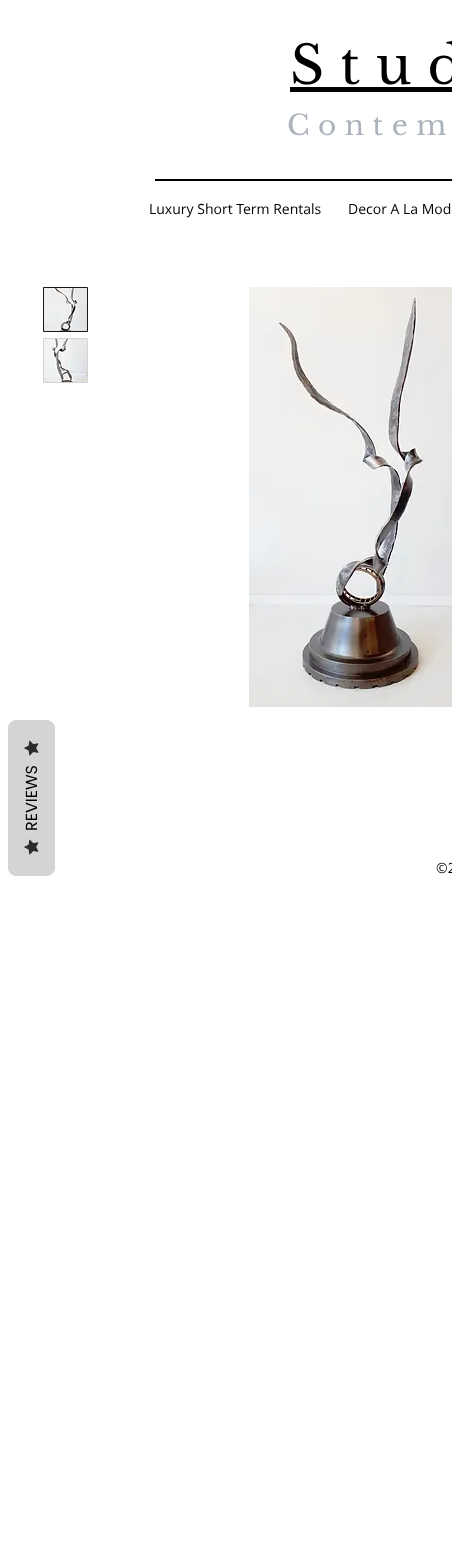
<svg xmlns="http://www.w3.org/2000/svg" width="452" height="1549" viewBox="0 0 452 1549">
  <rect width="100%" height="100%" fill="#fff"/>
  <path d="M8 868V728C8 724 12 720 16 720H47C51 720 55 724 55 728V868C55 872 51 876 47 876H16C12 876 8 872 8 868Z" fill="#d4d4d4"/>
  <image x="24" y="740" width="15" height="16" href="img/1.png"/>
  <image x="24" y="839" width="15" height="16" href="img/1.png"/>
  <path d="M290 87h162v5H290z" fill="#000"/>
  <path d="M155 179h297v2H155z" fill="#000"/>
  <path d="M43.5 287.5h44v44H43.5z" fill="none" stroke="#181818"/>
  <image x="44" y="288" width="43" height="43" href="img/2.png"/>
  <path d="M43.5 338.5h44v44H43.5z" fill="none" stroke="#d4d4d4"/>
  <image x="44" y="339" width="43" height="43" href="img/3.png"/>
  <image x="249" y="287" width="203" height="420" href="img/4.png"/>
  <text x="37" y="831" transform="rotate(-90 37 831)" font-family="Poppins" font-size="16" fill="#000">REVIEWS</text>
  <text x="290" y="84" font-family="Libre Baskerville" font-size="53" letter-spacing="16" fill="#000">Stud</text>
  <text x="287" y="135" font-family="Libre Baskerville" font-size="28" letter-spacing="8.5" fill="#adb3bc">Contem</text>
  <g font-family="Open Sans" font-size="14" fill="#000">
    <text x="149" y="214">Luxury Short Term Rentals</text>
    <text x="348" y="214">Decor A La Mod</text>
    <text x="436" y="873">©2</text>
  </g>
</svg>
